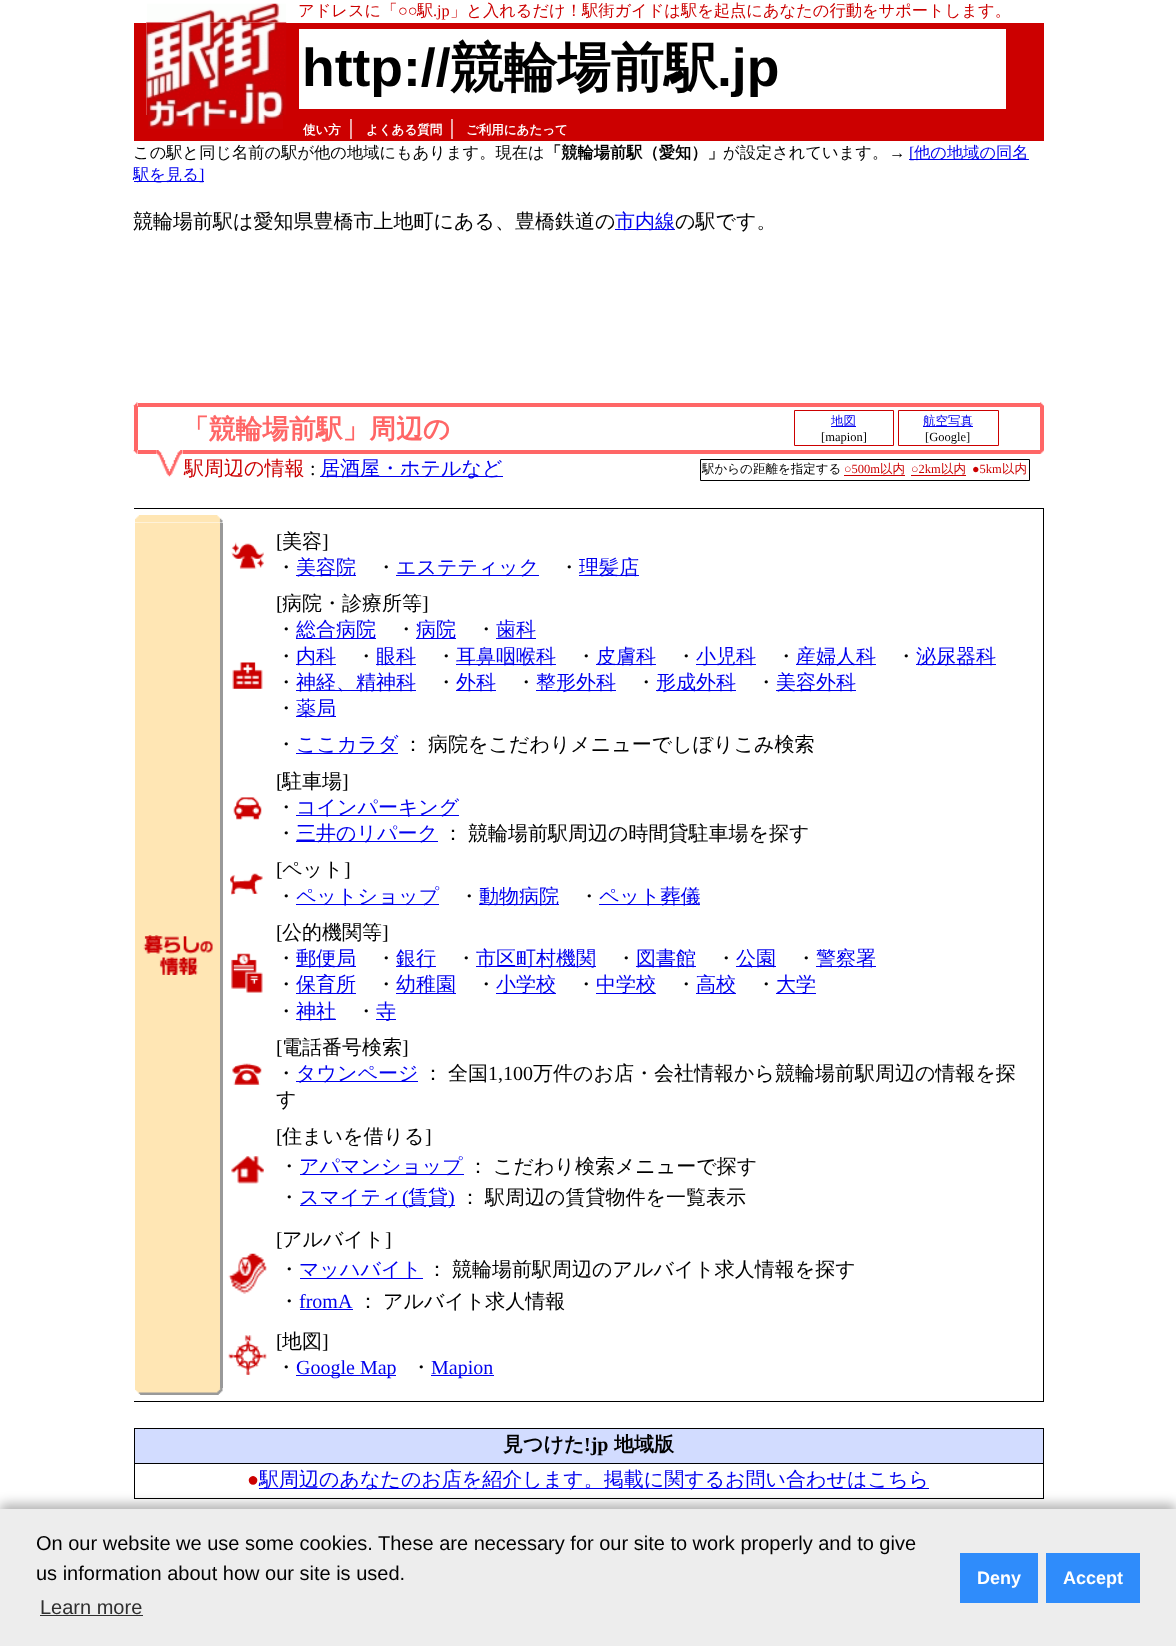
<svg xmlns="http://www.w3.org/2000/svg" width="1176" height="1646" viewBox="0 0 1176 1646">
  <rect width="100%" height="100%" fill="#fff"/>
  <image x="147" y="3" width="139" height="20" href="img/1.png"/>
  <path d="M134 23h12v118H134z" fill="#c00"/>
  <path d="M286 23h758v92H286z" fill="#c00"/>
  <image x="146" y="22" width="141" height="93" href="img/2.png"/>
  <path d="M299 29h707v80H299z" fill="#fff"/>
  <path d="M146 115h898v26H146z" fill="#c00"/>
  <image x="148" y="115" width="135" height="14" href="img/3.png"/>
  <path d="M909 159h120v1H909z" fill="#00e"/>
  <path d="M134 181h70v1H134z" fill="#00e"/>
  <path d="M615 229h60v1H615z" fill="#00e"/>
  <path d="M134 406h4v44H134z" fill="#f66"/>
  <image x="133" y="402" width="5" height="5" href="img/4.png"/>
  <path d="M138 403h902v4H138z" fill="#f66"/>
  <image x="1040" y="402" width="4" height="4" href="img/5.png"/>
  <path d="M794.5 410.5h99v35H794.5z" fill="none" stroke="#c00"/>
  <path d="M831 426h25v1H831z" fill="#00e"/>
  <path d="M898.5 410.5h100v35H898.5z" fill="none" stroke="#c00"/>
  <path d="M923 426h50v1H923z" fill="#00e"/>
  <path d="M1040 406h4v44H1040z" fill="#f66"/>
  <image x="133" y="450" width="5" height="4" href="img/6.png"/>
  <path d="M138 450h18v4H138z" fill="#f66"/>
  <image x="156" y="450" width="27" height="27" href="img/7.png"/>
  <path d="M183 450h857v4H183z" fill="#f66"/>
  <image x="1040" y="450" width="4" height="4" href="img/8.png"/>
  <path d="M320 476h183v1H320z" fill="#00e"/>
  <path d="M700.5 459.5h329v21H700.5z" fill="none" stroke="#000"/>
  <path d="M844 475h61v1H844z" fill="#c00"/>
  <path d="M911 475h55v1H911z" fill="#c00"/>
  <path d="M134 508h910v1H134z" fill="#000"/>
  <image x="135" y="515" width="88" height="8" href="img/9.png"/>
  <path d="M1043 509h1v892H1043z" fill="#000"/>
  <path d="M135 523h85v865H135z" fill="#ffe6b4"/>
  <image x="143" y="935" width="70" height="40" href="img/10.png"/>
  <path d="M220 523h3v865H220z" fill="#999"/>
  <image x="231" y="542" width="33" height="27" href="img/11.png"/>
  <path d="M296 575h60v1H296z" fill="#00e"/>
  <path d="M396 575h143v1H396z" fill="#00e"/>
  <path d="M579 575h60v1H579z" fill="#00e"/>
  <image x="232" y="662" width="31" height="27" href="img/12.png"/>
  <path d="M296 638h80v1H296z" fill="#00e"/>
  <path d="M416 638h40v1H416z" fill="#00e"/>
  <path d="M496 638h40v1H496z" fill="#00e"/>
  <path d="M296 664h40v1H296z" fill="#00e"/>
  <path d="M376 664h40v1H376z" fill="#00e"/>
  <path d="M456 664h100v1H456z" fill="#00e"/>
  <path d="M596 664h60v1H596z" fill="#00e"/>
  <path d="M696 664h60v1H696z" fill="#00e"/>
  <path d="M796 664h80v1H796z" fill="#00e"/>
  <path d="M916 664h80v1H916z" fill="#00e"/>
  <path d="M296 690h120v1H296z" fill="#00e"/>
  <path d="M456 690h40v1H456z" fill="#00e"/>
  <path d="M536 690h80v1H536z" fill="#00e"/>
  <path d="M656 690h80v1H656z" fill="#00e"/>
  <path d="M776 690h80v1H776z" fill="#00e"/>
  <path d="M296 716h40v1H296z" fill="#00e"/>
  <path d="M296 753h102v1H296z" fill="#00e"/>
  <image x="233" y="797" width="29" height="23" href="img/13.png"/>
  <path d="M296 815h163v1H296z" fill="#00e"/>
  <path d="M296 841h142v1H296z" fill="#00e"/>
  <image x="230" y="873" width="33" height="22" href="img/14.png"/>
  <path d="M296 904h143v1H296z" fill="#00e"/>
  <path d="M479 904h80v1H479z" fill="#00e"/>
  <path d="M599 904h101v1H599z" fill="#00e"/>
  <image x="231" y="953" width="32" height="40" href="img/15.png"/>
  <path d="M296 966h60v1H296z" fill="#00e"/>
  <path d="M396 966h40v1H396z" fill="#00e"/>
  <path d="M476 966h120v1H476z" fill="#00e"/>
  <path d="M636 966h60v1H636z" fill="#00e"/>
  <path d="M736 966h40v1H736z" fill="#00e"/>
  <path d="M816 966h60v1H816z" fill="#00e"/>
  <path d="M296 993h60v1H296z" fill="#00e"/>
  <path d="M396 993h60v1H396z" fill="#00e"/>
  <path d="M496 993h60v1H496z" fill="#00e"/>
  <path d="M596 993h60v1H596z" fill="#00e"/>
  <path d="M696 993h40v1H696z" fill="#00e"/>
  <path d="M776 993h40v1H776z" fill="#00e"/>
  <path d="M296 1019h40v1H296z" fill="#00e"/>
  <path d="M376 1019h20v1H376z" fill="#00e"/>
  <image x="232" y="1063" width="30" height="22" href="img/16.png"/>
  <path d="M296 1081h122v1H296z" fill="#00e"/>
  <image x="231" y="1156" width="33" height="28" href="img/17.png"/>
  <path d="M300 1174h164v1H300z" fill="#00e"/>
  <path d="M300 1205h155v1H300z" fill="#00e"/>
  <image x="228" y="1253" width="39" height="41" href="img/18.png"/>
  <path d="M300 1278h123v1H300z" fill="#00e"/>
  <path d="M300 1309h53v1H300z" fill="#00e"/>
  <image x="228" y="1335" width="39" height="40" href="img/19.png"/>
  <path d="M296 1375h100v1H296z" fill="#00e"/>
  <path d="M431 1375h63v1H431z" fill="#00e"/>
  <image x="135" y="1387" width="88" height="8" href="img/20.png"/>
  <path d="M134 1401h910v1H134z" fill="#000"/>
  <path d="M134 1428h910v71H134z" fill="#000"/>
  <path d="M135 1429h908v34H135z" fill="#d2dcff"/>
  <path d="M135 1464h908v34H135z" fill="#fff"/>
  <path d="M259 1488h670v1H259z" fill="#00e"/>
  <path d="M0 1504h1176v137H0z" fill="#0000004d" filter="blur(6px)"/>
  <path d="M0 1509h1176v137H0z" fill="#ededed"/>
  <path d="M40 1615h103v1H40z" fill="#2f2f2f"/>
  <path d="M960 1553h78v50H960z" fill="#2f8cfb"/>
  <path d="M1046 1553h94v50H1046z" fill="#2f8cfb"/>
  <text x="298" y="16" font-family="WenQuanYi Zen Hei" font-size="16.25" font-weight="500" fill="#c00">アドレスに「</text>
  <text x="398" y="16" font-family="Liberation Serif" font-size="16.25" fill="#c00">○○</text>
  <text x="417" y="16" font-family="WenQuanYi Zen Hei" font-size="16.25" font-weight="500" fill="#c00">駅</text>
  <text x="433" y="16" font-family="Liberation Serif" font-size="16.25" fill="#c00">.jp</text>
  <text x="450" y="16" font-family="WenQuanYi Zen Hei" font-size="16.25" font-weight="500" fill="#c00">」と入れるだけ！駅街ガイドは駅を起点にあなたの行動をサポートします。</text>
  <text x="302" y="86" font-family="Liberation Sans" font-size="53.5" font-weight="bold" fill="#000">http://</text>
  <text x="450" y="86" font-family="WenQuanYi Zen Hei" font-size="53.5" font-weight="bold" fill="#000">競輪場前駅</text>
  <text x="717" y="86" font-family="Liberation Sans" font-size="53.5" font-weight="bold" fill="#000">.jp</text>
  <text x="303" y="134" font-family="WenQuanYi Zen Hei" font-size="12.5" font-weight="bold" fill="#fff">使い方</text>
  <text x="341" y="134" font-family="WenQuanYi Zen Hei" font-size="20" font-weight="500" fill="#fff">｜</text>
  <text x="366" y="134" font-family="WenQuanYi Zen Hei" font-size="12.5" font-weight="bold" fill="#fff">よくある質問</text>
  <text x="442" y="134" font-family="WenQuanYi Zen Hei" font-size="20" font-weight="500" fill="#fff">｜</text>
  <text x="466" y="134" font-family="WenQuanYi Zen Hei" font-size="12.5" font-weight="bold" fill="#fff">ご利用にあたって</text>
  <text x="133" y="158" font-family="WenQuanYi Zen Hei" font-size="16.25" font-weight="500" fill="#000">この駅と同じ名前の駅が他の地域にもあります。現在は</text>
  <text x="545" y="158" font-family="WenQuanYi Zen Hei" font-size="16.25" font-weight="bold" fill="#000">「競輪場前駅（愛知）」</text>
  <text x="723" y="158" font-family="WenQuanYi Zen Hei" font-size="16.25" font-weight="500" fill="#000">が設定されています。</text>
  <text x="889" y="158" font-family="Liberation Serif" font-size="16.25" fill="#000">→</text>
  <text x="909" y="158" font-family="Liberation Serif" font-size="16.25" fill="#00e">[</text>
  <g font-family="WenQuanYi Zen Hei" font-size="16.25" font-weight="500" fill="#00e">
    <text x="914" y="158">他の地域の同名</text>
    <text x="133" y="180">駅を見る</text>
  </g>
  <text x="199" y="180" font-family="Liberation Serif" font-size="16.25" fill="#00e">]</text>
  <text x="133" y="228" font-family="WenQuanYi Zen Hei" font-size="20" font-weight="500" fill="#000">競輪場前駅は愛知県豊橋市上地町にある、豊橋鉄道の</text>
  <text x="615" y="228" font-family="WenQuanYi Zen Hei" font-size="20" font-weight="500" fill="#00e">市内線</text>
  <text x="675" y="228" font-family="WenQuanYi Zen Hei" font-size="20" font-weight="500" fill="#000">の駅です。</text>
  <text x="182" y="438" font-family="WenQuanYi Zen Hei" font-size="26.75" font-weight="bold" fill="#f66">「競輪場前駅」周辺の</text>
  <text x="831" y="425" font-family="WenQuanYi Zen Hei" font-size="12.5" font-weight="500" fill="#00e">地図</text>
  <text x="821" y="441" font-family="Liberation Serif" font-size="12.5" fill="#000">[mapion]</text>
  <text x="923" y="425" font-family="WenQuanYi Zen Hei" font-size="12.5" font-weight="500" fill="#00e">航空写真</text>
  <text x="925" y="441" font-family="Liberation Serif" font-size="12.5" fill="#000">[Google]</text>
  <text x="184" y="475" font-family="WenQuanYi Zen Hei" font-size="20" font-weight="500" fill="#c00">駅周辺の情報</text>
  <text x="310" y="475" font-family="Liberation Serif" font-size="20" fill="#000">:</text>
  <text x="320" y="475" font-family="WenQuanYi Zen Hei" font-size="20" font-weight="500" fill="#00e">居酒屋・ホテルなど</text>
  <text x="702" y="473" font-family="WenQuanYi Zen Hei" font-size="12.5" font-weight="500" fill="#000">駅からの距離を指定する</text>
  <text x="844" y="473" font-family="Liberation Serif" font-size="12.5" fill="#c00">○500m</text>
  <text x="880" y="473" font-family="WenQuanYi Zen Hei" font-size="12.5" font-weight="500" fill="#c00">以内</text>
  <text x="911" y="473" font-family="Liberation Serif" font-size="12.5" fill="#c00">○2km</text>
  <text x="941" y="473" font-family="WenQuanYi Zen Hei" font-size="12.5" font-weight="500" fill="#c00">以内</text>
  <text x="972" y="473" font-family="Liberation Serif" font-size="12.5" fill="#c00">●5km</text>
  <text x="1002" y="473" font-family="WenQuanYi Zen Hei" font-size="12.5" font-weight="500" fill="#c00">以内</text>
  <text x="276" y="548" font-family="Liberation Serif" font-size="20" fill="#000">[</text>
  <text x="282" y="548" font-family="WenQuanYi Zen Hei" font-size="20" font-weight="500" fill="#000">美容</text>
  <text x="322" y="548" font-family="Liberation Serif" font-size="20" fill="#000">]</text>
  <text x="276" y="574" font-family="WenQuanYi Zen Hei" font-size="20" font-weight="500" fill="#000">・</text>
  <text x="296" y="574" font-family="WenQuanYi Zen Hei" font-size="20" font-weight="500" fill="#00e">美容院</text>
  <text x="376" y="574" font-family="WenQuanYi Zen Hei" font-size="20" font-weight="500" fill="#000">・</text>
  <text x="396" y="574" font-family="WenQuanYi Zen Hei" font-size="20" font-weight="500" fill="#00e">エステティック</text>
  <text x="559" y="574" font-family="WenQuanYi Zen Hei" font-size="20" font-weight="500" fill="#000">・</text>
  <text x="579" y="574" font-family="WenQuanYi Zen Hei" font-size="20" font-weight="500" fill="#00e">理髪店</text>
  <text x="276" y="610" font-family="Liberation Serif" font-size="20" fill="#000">[</text>
  <text x="282" y="610" font-family="WenQuanYi Zen Hei" font-size="20" font-weight="500" fill="#000">病院・診療所等</text>
  <text x="422" y="610" font-family="Liberation Serif" font-size="20" fill="#000">]</text>
  <text x="276" y="636" font-family="WenQuanYi Zen Hei" font-size="20" font-weight="500" fill="#000">・</text>
  <text x="296" y="636" font-family="WenQuanYi Zen Hei" font-size="20" font-weight="500" fill="#00e">総合病院</text>
  <text x="396" y="636" font-family="WenQuanYi Zen Hei" font-size="20" font-weight="500" fill="#000">・</text>
  <text x="416" y="636" font-family="WenQuanYi Zen Hei" font-size="20" font-weight="500" fill="#00e">病院</text>
  <text x="476" y="636" font-family="WenQuanYi Zen Hei" font-size="20" font-weight="500" fill="#000">・</text>
  <text x="496" y="636" font-family="WenQuanYi Zen Hei" font-size="20" font-weight="500" fill="#00e">歯科</text>
  <text x="276" y="663" font-family="WenQuanYi Zen Hei" font-size="20" font-weight="500" fill="#000">・</text>
  <text x="296" y="663" font-family="WenQuanYi Zen Hei" font-size="20" font-weight="500" fill="#00e">内科</text>
  <text x="356" y="663" font-family="WenQuanYi Zen Hei" font-size="20" font-weight="500" fill="#000">・</text>
  <text x="376" y="663" font-family="WenQuanYi Zen Hei" font-size="20" font-weight="500" fill="#00e">眼科</text>
  <text x="436" y="663" font-family="WenQuanYi Zen Hei" font-size="20" font-weight="500" fill="#000">・</text>
  <text x="456" y="663" font-family="WenQuanYi Zen Hei" font-size="20" font-weight="500" fill="#00e">耳鼻咽喉科</text>
  <text x="576" y="663" font-family="WenQuanYi Zen Hei" font-size="20" font-weight="500" fill="#000">・</text>
  <text x="596" y="663" font-family="WenQuanYi Zen Hei" font-size="20" font-weight="500" fill="#00e">皮膚科</text>
  <text x="676" y="663" font-family="WenQuanYi Zen Hei" font-size="20" font-weight="500" fill="#000">・</text>
  <text x="696" y="663" font-family="WenQuanYi Zen Hei" font-size="20" font-weight="500" fill="#00e">小児科</text>
  <text x="776" y="663" font-family="WenQuanYi Zen Hei" font-size="20" font-weight="500" fill="#000">・</text>
  <text x="796" y="663" font-family="WenQuanYi Zen Hei" font-size="20" font-weight="500" fill="#00e">産婦人科</text>
  <text x="896" y="663" font-family="WenQuanYi Zen Hei" font-size="20" font-weight="500" fill="#000">・</text>
  <text x="916" y="663" font-family="WenQuanYi Zen Hei" font-size="20" font-weight="500" fill="#00e">泌尿器科</text>
  <text x="276" y="689" font-family="WenQuanYi Zen Hei" font-size="20" font-weight="500" fill="#000">・</text>
  <text x="296" y="689" font-family="WenQuanYi Zen Hei" font-size="20" font-weight="500" fill="#00e">神経、精神科</text>
  <text x="436" y="689" font-family="WenQuanYi Zen Hei" font-size="20" font-weight="500" fill="#000">・</text>
  <text x="456" y="689" font-family="WenQuanYi Zen Hei" font-size="20" font-weight="500" fill="#00e">外科</text>
  <text x="516" y="689" font-family="WenQuanYi Zen Hei" font-size="20" font-weight="500" fill="#000">・</text>
  <text x="536" y="689" font-family="WenQuanYi Zen Hei" font-size="20" font-weight="500" fill="#00e">整形外科</text>
  <text x="636" y="689" font-family="WenQuanYi Zen Hei" font-size="20" font-weight="500" fill="#000">・</text>
  <text x="656" y="689" font-family="WenQuanYi Zen Hei" font-size="20" font-weight="500" fill="#00e">形成外科</text>
  <text x="756" y="689" font-family="WenQuanYi Zen Hei" font-size="20" font-weight="500" fill="#000">・</text>
  <text x="776" y="689" font-family="WenQuanYi Zen Hei" font-size="20" font-weight="500" fill="#00e">美容外科</text>
  <text x="276" y="715" font-family="WenQuanYi Zen Hei" font-size="20" font-weight="500" fill="#000">・</text>
  <text x="296" y="715" font-family="WenQuanYi Zen Hei" font-size="20" font-weight="500" fill="#00e">薬局</text>
  <text x="276" y="751" font-family="WenQuanYi Zen Hei" font-size="20" font-weight="500" fill="#000">・</text>
  <text x="296" y="751" font-family="WenQuanYi Zen Hei" font-size="20" font-weight="500" fill="#00e">ここカラダ</text>
  <g font-family="WenQuanYi Zen Hei" font-size="20" font-weight="500" fill="#000">
    <text x="403" y="751">：</text>
    <text x="428" y="751">病院をこだわりメニューでしぼりこみ検索</text>
  </g>
  <text x="276" y="788" font-family="Liberation Serif" font-size="20" fill="#000">[</text>
  <text x="282" y="788" font-family="WenQuanYi Zen Hei" font-size="20" font-weight="500" fill="#000">駐車場</text>
  <text x="342" y="788" font-family="Liberation Serif" font-size="20" fill="#000">]</text>
  <text x="276" y="814" font-family="WenQuanYi Zen Hei" font-size="20" font-weight="500" fill="#000">・</text>
  <text x="296" y="814" font-family="WenQuanYi Zen Hei" font-size="20" font-weight="500" fill="#00e">コインパーキング</text>
  <text x="276" y="840" font-family="WenQuanYi Zen Hei" font-size="20" font-weight="500" fill="#000">・</text>
  <text x="296" y="840" font-family="WenQuanYi Zen Hei" font-size="20" font-weight="500" fill="#00e">三井のリパーク</text>
  <g font-family="WenQuanYi Zen Hei" font-size="20" font-weight="500" fill="#000">
    <text x="443" y="840">：</text>
    <text x="468" y="840">競輪場前駅周辺の時間貸駐車場を探す</text>
  </g>
  <text x="276" y="876" font-family="Liberation Serif" font-size="20" fill="#000">[</text>
  <text x="282" y="876" font-family="WenQuanYi Zen Hei" font-size="20" font-weight="500" fill="#000">ペット</text>
  <text x="344" y="876" font-family="Liberation Serif" font-size="20" fill="#000">]</text>
  <text x="276" y="903" font-family="WenQuanYi Zen Hei" font-size="20" font-weight="500" fill="#000">・</text>
  <text x="296" y="903" font-family="WenQuanYi Zen Hei" font-size="20" font-weight="500" fill="#00e">ペットショップ</text>
  <text x="459" y="903" font-family="WenQuanYi Zen Hei" font-size="20" font-weight="500" fill="#000">・</text>
  <text x="479" y="903" font-family="WenQuanYi Zen Hei" font-size="20" font-weight="500" fill="#00e">動物病院</text>
  <text x="579" y="903" font-family="WenQuanYi Zen Hei" font-size="20" font-weight="500" fill="#000">・</text>
  <text x="599" y="903" font-family="WenQuanYi Zen Hei" font-size="20" font-weight="500" fill="#00e">ペット葬儀</text>
  <text x="276" y="939" font-family="Liberation Serif" font-size="20" fill="#000">[</text>
  <text x="282" y="939" font-family="WenQuanYi Zen Hei" font-size="20" font-weight="500" fill="#000">公的機関等</text>
  <text x="382" y="939" font-family="Liberation Serif" font-size="20" fill="#000">]</text>
  <text x="276" y="965" font-family="WenQuanYi Zen Hei" font-size="20" font-weight="500" fill="#000">・</text>
  <text x="296" y="965" font-family="WenQuanYi Zen Hei" font-size="20" font-weight="500" fill="#00e">郵便局</text>
  <text x="376" y="965" font-family="WenQuanYi Zen Hei" font-size="20" font-weight="500" fill="#000">・</text>
  <text x="396" y="965" font-family="WenQuanYi Zen Hei" font-size="20" font-weight="500" fill="#00e">銀行</text>
  <text x="456" y="965" font-family="WenQuanYi Zen Hei" font-size="20" font-weight="500" fill="#000">・</text>
  <text x="476" y="965" font-family="WenQuanYi Zen Hei" font-size="20" font-weight="500" fill="#00e">市区町村機関</text>
  <text x="616" y="965" font-family="WenQuanYi Zen Hei" font-size="20" font-weight="500" fill="#000">・</text>
  <text x="636" y="965" font-family="WenQuanYi Zen Hei" font-size="20" font-weight="500" fill="#00e">図書館</text>
  <text x="716" y="965" font-family="WenQuanYi Zen Hei" font-size="20" font-weight="500" fill="#000">・</text>
  <text x="736" y="965" font-family="WenQuanYi Zen Hei" font-size="20" font-weight="500" fill="#00e">公園</text>
  <text x="796" y="965" font-family="WenQuanYi Zen Hei" font-size="20" font-weight="500" fill="#000">・</text>
  <text x="816" y="965" font-family="WenQuanYi Zen Hei" font-size="20" font-weight="500" fill="#00e">警察署</text>
  <text x="276" y="991" font-family="WenQuanYi Zen Hei" font-size="20" font-weight="500" fill="#000">・</text>
  <text x="296" y="991" font-family="WenQuanYi Zen Hei" font-size="20" font-weight="500" fill="#00e">保育所</text>
  <text x="376" y="991" font-family="WenQuanYi Zen Hei" font-size="20" font-weight="500" fill="#000">・</text>
  <text x="396" y="991" font-family="WenQuanYi Zen Hei" font-size="20" font-weight="500" fill="#00e">幼稚園</text>
  <text x="476" y="991" font-family="WenQuanYi Zen Hei" font-size="20" font-weight="500" fill="#000">・</text>
  <text x="496" y="991" font-family="WenQuanYi Zen Hei" font-size="20" font-weight="500" fill="#00e">小学校</text>
  <text x="576" y="991" font-family="WenQuanYi Zen Hei" font-size="20" font-weight="500" fill="#000">・</text>
  <text x="596" y="991" font-family="WenQuanYi Zen Hei" font-size="20" font-weight="500" fill="#00e">中学校</text>
  <text x="676" y="991" font-family="WenQuanYi Zen Hei" font-size="20" font-weight="500" fill="#000">・</text>
  <text x="696" y="991" font-family="WenQuanYi Zen Hei" font-size="20" font-weight="500" fill="#00e">高校</text>
  <text x="756" y="991" font-family="WenQuanYi Zen Hei" font-size="20" font-weight="500" fill="#000">・</text>
  <text x="776" y="991" font-family="WenQuanYi Zen Hei" font-size="20" font-weight="500" fill="#00e">大学</text>
  <text x="276" y="1018" font-family="WenQuanYi Zen Hei" font-size="20" font-weight="500" fill="#000">・</text>
  <text x="296" y="1018" font-family="WenQuanYi Zen Hei" font-size="20" font-weight="500" fill="#00e">神社</text>
  <text x="356" y="1018" font-family="WenQuanYi Zen Hei" font-size="20" font-weight="500" fill="#000">・</text>
  <text x="376" y="1018" font-family="WenQuanYi Zen Hei" font-size="20" font-weight="500" fill="#00e">寺</text>
  <text x="276" y="1054" font-family="Liberation Serif" font-size="20" fill="#000">[</text>
  <text x="282" y="1054" font-family="WenQuanYi Zen Hei" font-size="20" font-weight="500" fill="#000">電話番号検索</text>
  <text x="402" y="1054" font-family="Liberation Serif" font-size="20" fill="#000">]</text>
  <text x="276" y="1080" font-family="WenQuanYi Zen Hei" font-size="20" font-weight="500" fill="#000">・</text>
  <text x="296" y="1080" font-family="WenQuanYi Zen Hei" font-size="20" font-weight="500" fill="#00e">タウンページ</text>
  <g font-family="WenQuanYi Zen Hei" font-size="20" font-weight="500" fill="#000">
    <text x="423" y="1080">：</text>
    <text x="448" y="1080">全国</text>
  </g>
  <text x="488" y="1080" font-family="Liberation Serif" font-size="20" fill="#000">1,100</text>
  <g font-family="WenQuanYi Zen Hei" font-size="20" font-weight="500" fill="#000">
    <text x="533" y="1080">万件のお店・会社情報から競輪場前駅周辺の情報を探</text>
    <text x="276" y="1106">す</text>
  </g>
  <text x="276" y="1143" font-family="Liberation Serif" font-size="20" fill="#000">[</text>
  <text x="282" y="1143" font-family="WenQuanYi Zen Hei" font-size="20" font-weight="500" fill="#000">住まいを借りる</text>
  <text x="425" y="1143" font-family="Liberation Serif" font-size="20" fill="#000">]</text>
  <text x="279" y="1173" font-family="WenQuanYi Zen Hei" font-size="20" font-weight="500" fill="#000">・</text>
  <text x="299" y="1173" font-family="WenQuanYi Zen Hei" font-size="20" font-weight="500" fill="#00e">アパマンショップ</text>
  <g font-family="WenQuanYi Zen Hei" font-size="20" font-weight="500" fill="#000">
    <text x="468" y="1173">：</text>
    <text x="493" y="1173">こだわり検索メニューで探す</text>
    <text x="279" y="1204">・</text>
  </g>
  <text x="299" y="1204" font-family="WenQuanYi Zen Hei" font-size="20" font-weight="500" fill="#00e">スマイティ</text>
  <text x="402" y="1204" font-family="Liberation Serif" font-size="20" fill="#00e">(</text>
  <text x="408" y="1204" font-family="WenQuanYi Zen Hei" font-size="20" font-weight="500" fill="#00e">賃貸</text>
  <text x="448" y="1204" font-family="Liberation Serif" font-size="20" fill="#00e">)</text>
  <g font-family="WenQuanYi Zen Hei" font-size="20" font-weight="500" fill="#000">
    <text x="460" y="1204">：</text>
    <text x="485" y="1204">駅周辺の賃貸物件を一覧表示</text>
  </g>
  <text x="276" y="1246" font-family="Liberation Serif" font-size="20" fill="#000">[</text>
  <text x="282" y="1246" font-family="WenQuanYi Zen Hei" font-size="20" font-weight="500" fill="#000">アルバイト</text>
  <text x="385" y="1246" font-family="Liberation Serif" font-size="20" fill="#000">]</text>
  <text x="279" y="1276" font-family="WenQuanYi Zen Hei" font-size="20" font-weight="500" fill="#000">・</text>
  <text x="299" y="1276" font-family="WenQuanYi Zen Hei" font-size="20" font-weight="500" fill="#00e">マッハバイト</text>
  <g font-family="WenQuanYi Zen Hei" font-size="20" font-weight="500" fill="#000">
    <text x="427" y="1276">：</text>
    <text x="452" y="1276">競輪場前駅周辺のアルバイト求人情報を探す</text>
    <text x="279" y="1308">・</text>
  </g>
  <text x="299" y="1308" font-family="Liberation Serif" font-size="20" fill="#00e">fromA</text>
  <g font-family="WenQuanYi Zen Hei" font-size="20" font-weight="500" fill="#000">
    <text x="358" y="1308">：</text>
    <text x="383" y="1308">アルバイト求人情報</text>
  </g>
  <text x="276" y="1348" font-family="Liberation Serif" font-size="20" fill="#000">[</text>
  <text x="282" y="1348" font-family="WenQuanYi Zen Hei" font-size="20" font-weight="500" fill="#000">地図</text>
  <text x="322" y="1348" font-family="Liberation Serif" font-size="20" fill="#000">]</text>
  <text x="276" y="1374" font-family="WenQuanYi Zen Hei" font-size="20" font-weight="500" fill="#000">・</text>
  <text x="296" y="1374" font-family="Liberation Serif" font-size="20" fill="#00e">Google Map</text>
  <text x="411" y="1374" font-family="WenQuanYi Zen Hei" font-size="20" font-weight="500" fill="#000">・</text>
  <text x="431" y="1374" font-family="Liberation Serif" font-size="20" fill="#00e">Mapion</text>
  <text x="503" y="1451" font-family="WenQuanYi Zen Hei" font-size="20" font-weight="bold" fill="#000">見つけた</text>
  <text x="584" y="1451" font-family="Liberation Serif" font-size="20" font-weight="bold" fill="#000">!jp</text>
  <text x="614" y="1451" font-family="WenQuanYi Zen Hei" font-size="20" font-weight="bold" fill="#000">地域版</text>
  <text x="247" y="1486" font-family="Liberation Serif" font-size="20" fill="#c00">●</text>
  <text x="259" y="1486" font-family="WenQuanYi Zen Hei" font-size="20" font-weight="500" fill="#00e">駅周辺のあなたのお店を紹介します。掲載に関するお問い合わせはこちら</text>
  <g font-family="Liberation Sans" font-size="20" fill="#000">
    <text x="36" y="1550">On our website we use some cookies. These are necessary for our site to work properly and to give</text>
    <text x="36" y="1580">us information about how our site is used.</text>
  </g>
  <text x="40" y="1614" font-family="Liberation Sans" font-size="20" fill="#2f2f2f">Learn more</text>
  <g font-family="Liberation Sans" font-size="18" font-weight="bold" fill="#fff">
    <text x="977" y="1584">Deny</text>
    <text x="1063" y="1584">Accept</text>
  </g>
</svg>
